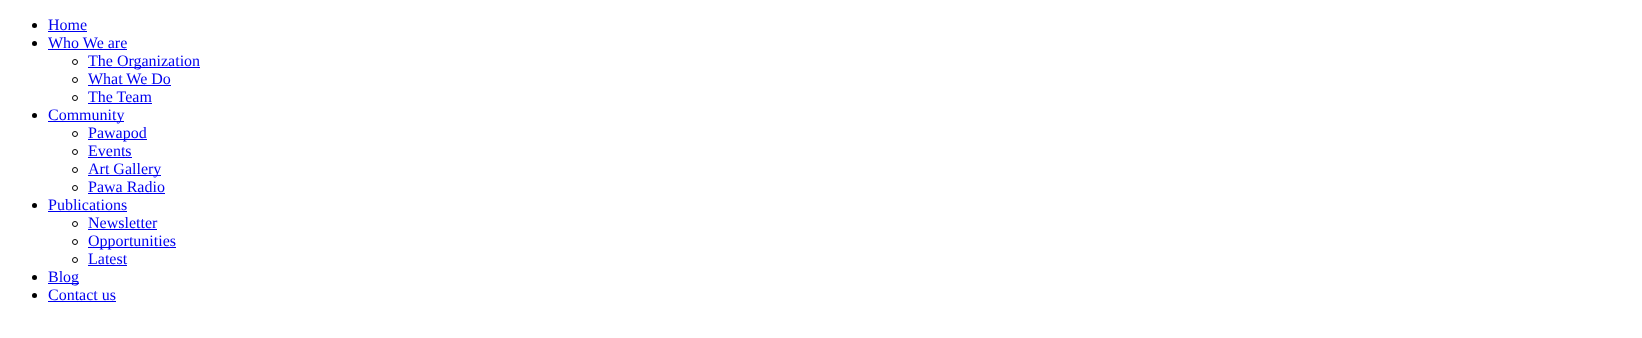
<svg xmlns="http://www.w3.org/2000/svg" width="1642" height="338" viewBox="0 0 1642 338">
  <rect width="100%" height="100%" fill="#fff"/>
  <circle cx="34.5" cy="25.5" r="2.5" fill="#000"/>
  <path d="M48 31h39v1H48z" fill="#00e"/>
  <circle cx="34.5" cy="43.5" r="2.5" fill="#000"/>
  <path d="M48 49h79v1H48z" fill="#00e"/>
  <circle cx="75" cy="62" r="2.5" fill="none" stroke="#000"/>
  <path d="M88 67h112v1H88z" fill="#00e"/>
  <circle cx="75" cy="80" r="2.5" fill="none" stroke="#000"/>
  <path d="M88 85h83v1H88z" fill="#00e"/>
  <circle cx="75" cy="98" r="2.5" fill="none" stroke="#000"/>
  <path d="M88 103h64v1H88z" fill="#00e"/>
  <circle cx="34.5" cy="115.5" r="2.5" fill="#000"/>
  <path d="M48 121h76v1H48z" fill="#00e"/>
  <circle cx="75" cy="134" r="2.5" fill="none" stroke="#000"/>
  <path d="M88 139h59v1H88z" fill="#00e"/>
  <circle cx="75" cy="152" r="2.5" fill="none" stroke="#000"/>
  <path d="M88 157h44v1H88z" fill="#00e"/>
  <circle cx="75" cy="170" r="2.5" fill="none" stroke="#000"/>
  <path d="M88 175h73v1H88z" fill="#00e"/>
  <circle cx="75" cy="188" r="2.5" fill="none" stroke="#000"/>
  <path d="M88 193h77v1H88z" fill="#00e"/>
  <circle cx="34.5" cy="205.5" r="2.5" fill="#000"/>
  <path d="M48 211h79v1H48z" fill="#00e"/>
  <circle cx="75" cy="224" r="2.5" fill="none" stroke="#000"/>
  <path d="M88 229h69v1H88z" fill="#00e"/>
  <circle cx="75" cy="242" r="2.5" fill="none" stroke="#000"/>
  <path d="M88 247h88v1H88z" fill="#00e"/>
  <circle cx="75" cy="260" r="2.5" fill="none" stroke="#000"/>
  <path d="M88 265h39v1H88z" fill="#00e"/>
  <circle cx="34.5" cy="277.5" r="2.5" fill="#000"/>
  <path d="M48 283h31v1H48z" fill="#00e"/>
  <circle cx="34.5" cy="295.5" r="2.5" fill="#000"/>
  <path d="M48 301h68v1H48z" fill="#00e"/>
  <g font-family="Liberation Serif" font-size="16" fill="#00e">
    <text x="48" y="30">Home</text>
    <text x="48" y="48">Who We are</text>
    <text x="88" y="66">The Organization</text>
    <text x="88" y="84">What We Do</text>
    <text x="88" y="102">The Team</text>
    <text x="48" y="120">Community</text>
    <text x="88" y="138">Pawapod</text>
    <text x="88" y="156">Events</text>
    <text x="88" y="174">Art Gallery</text>
    <text x="88" y="192">Pawa Radio</text>
    <text x="48" y="210">Publications</text>
    <text x="88" y="228">Newsletter</text>
    <text x="88" y="246">Opportunities</text>
    <text x="88" y="264">Latest</text>
    <text x="48" y="282">Blog</text>
    <text x="48" y="300">Contact us</text>
  </g>
</svg>
